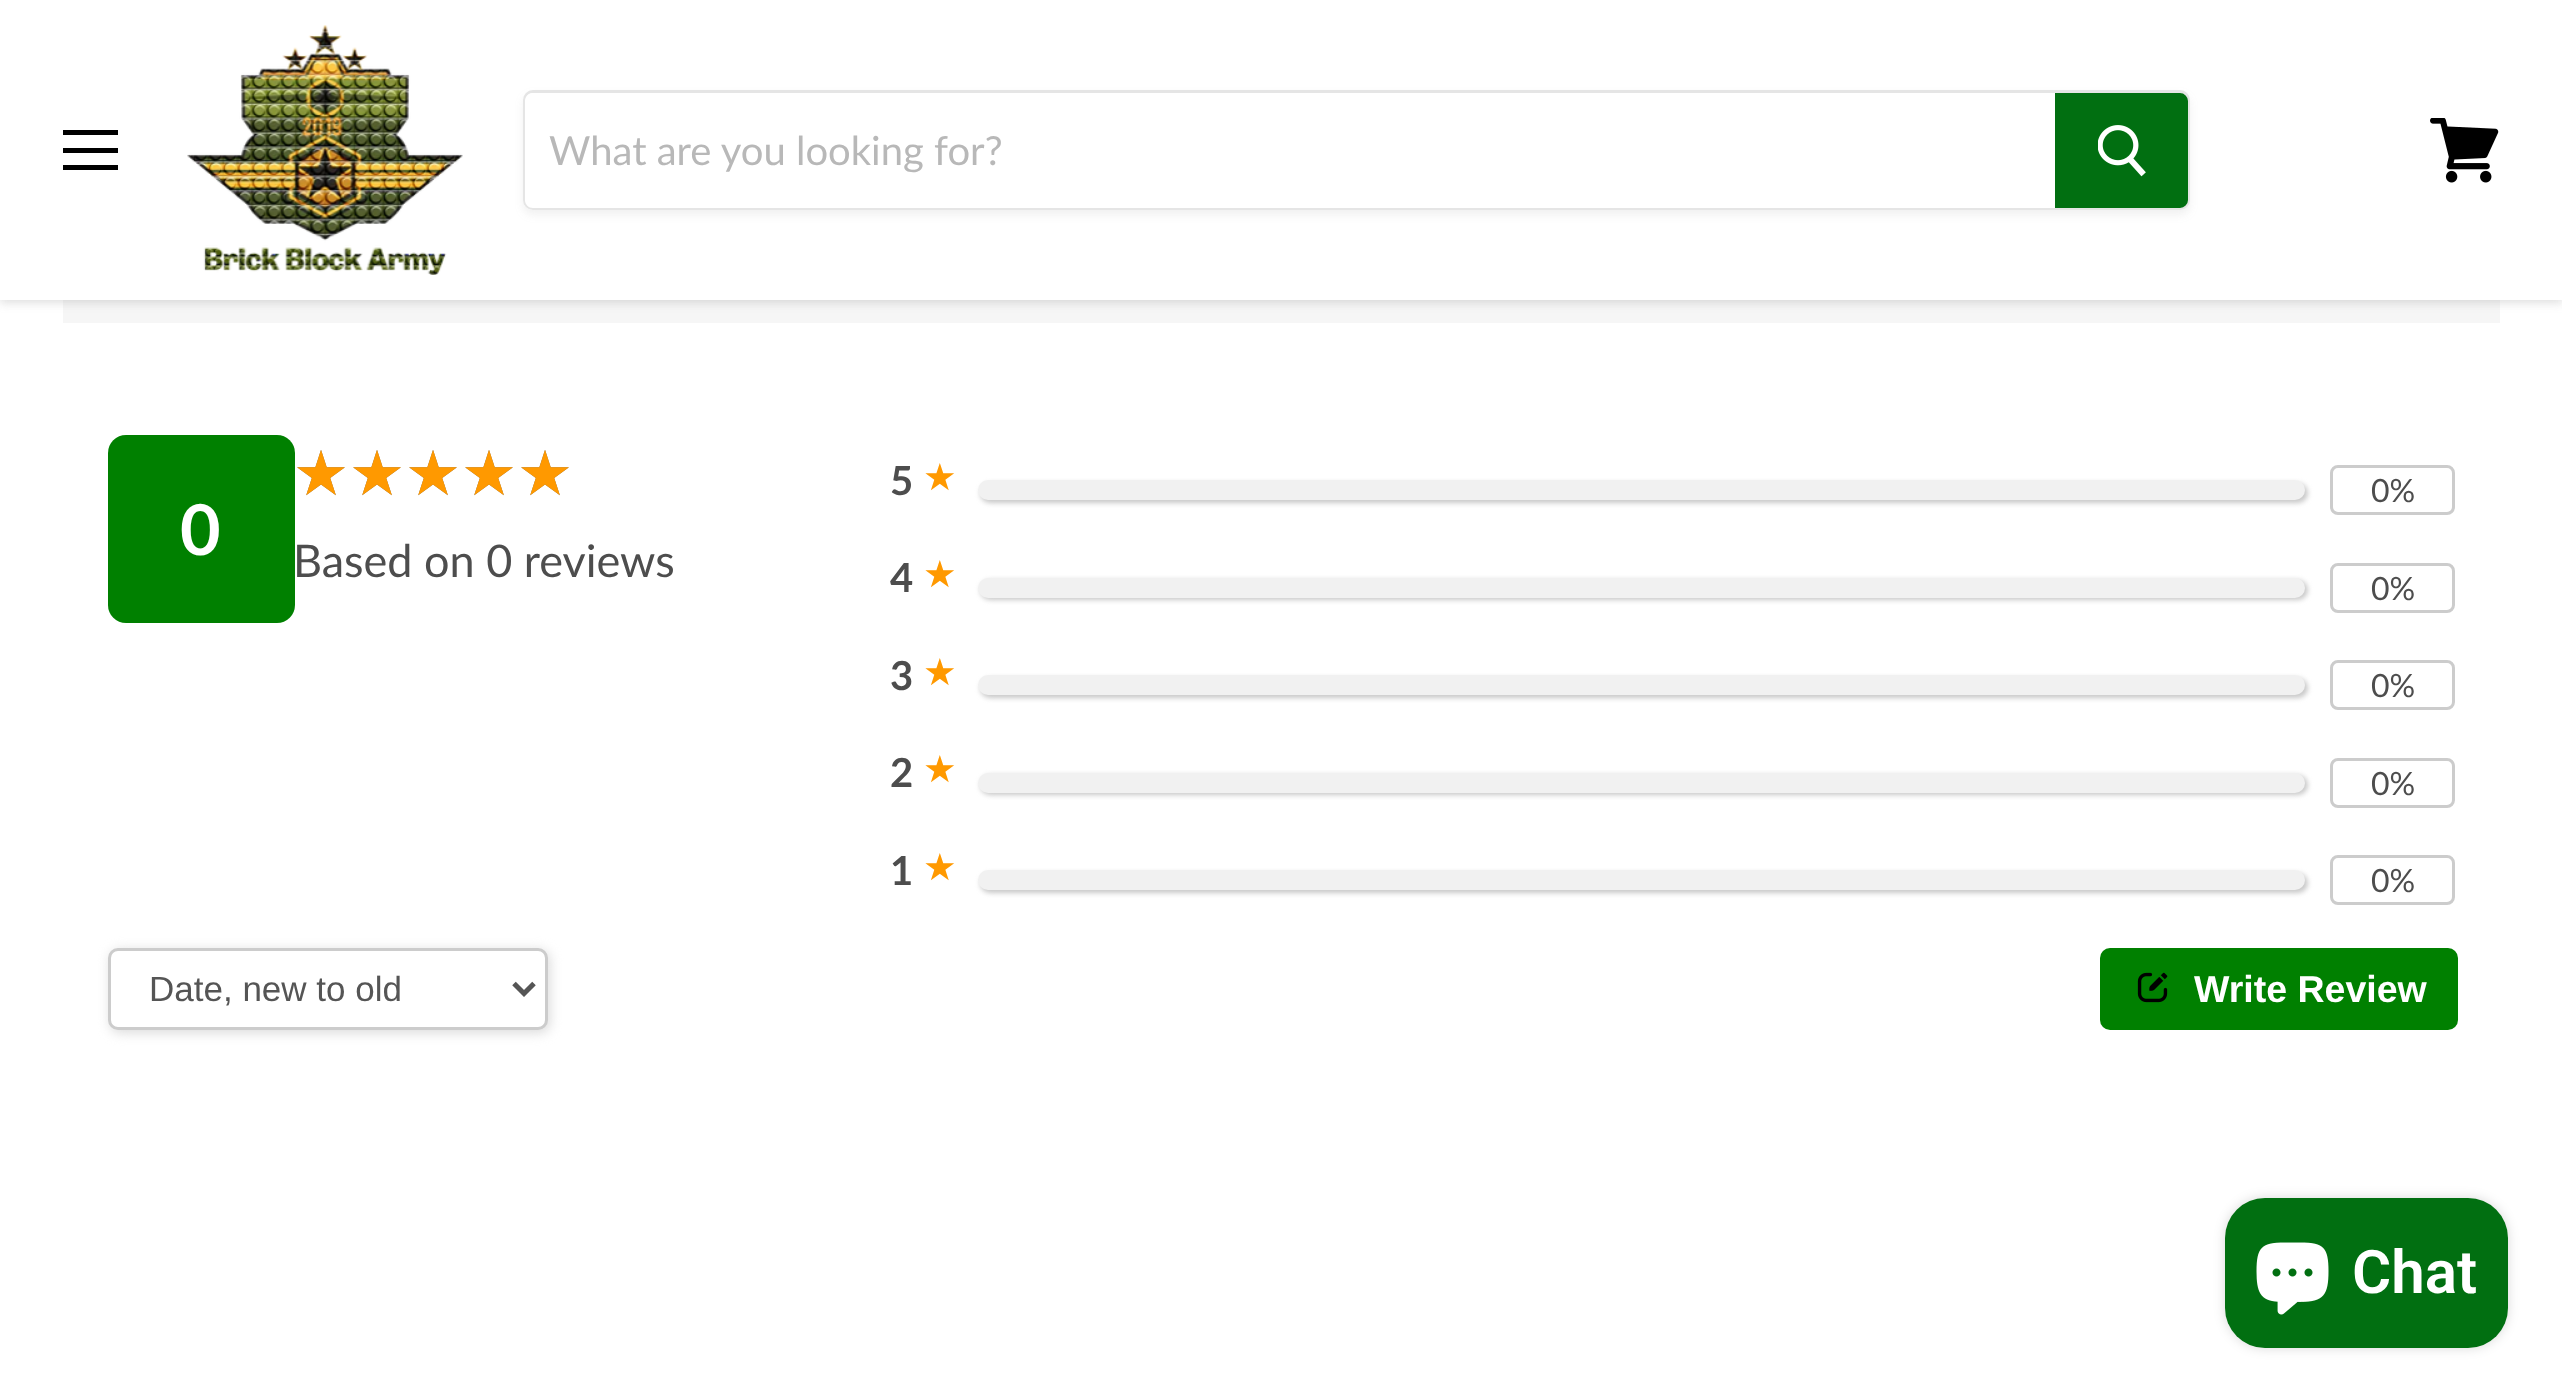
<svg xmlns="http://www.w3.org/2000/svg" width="2562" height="1398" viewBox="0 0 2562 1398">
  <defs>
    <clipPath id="clip1"><path d="M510 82H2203V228H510ZM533 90H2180C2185.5 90 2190 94.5 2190 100V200C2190 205.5 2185.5 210 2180 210H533C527.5 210 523 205.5 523 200V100C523 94.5 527.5 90 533 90Z" clip-rule="evenodd"/></clipPath>
  </defs>
  <rect width="100%" height="100%" fill="#fff"/>
  <path d="M63 300h2437v23H63z" fill="#f6f6f6"/>
  <path d="M0 3h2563v300H0z" fill="#7f7f7f40" filter="blur(5px)"/>
  <path d="M0 0h2562v300H0z" fill="#fff"/>
  <path d="M63 130h55v5H63z" fill="#000"/>
  <path d="M63 148h55v5H63z" fill="#000"/>
  <path d="M63 165h55v5H63z" fill="#000"/>
  <image x="187" y="25" width="276" height="250" href="img/1.png"/>
  <g clip-path="url(#clip1)">
    <rect x="523" y="95" width="1667" height="120" rx="10" fill="#7f7f7f1c" filter="blur(4px)"/>
  </g>
  <rect x="524.5" y="91.5" width="1664" height="117" rx="8.5" fill="none" stroke="#7f7f7f33" stroke-width="3"/>
  <path d="M533 93H2055V208H533C528.5 208 525 204.5 525 200V101C525 96.5 528.5 93 533 93Z" fill="#fff"/>
  <path d="M2056.5 94.5H2180C2183.5 94.5 2186.5 97.5 2186.5 101V200C2186.5 203.5 2183.5 206.5 2180 206.5H2056.5Z" fill="#016f11" stroke="#016f11" stroke-width="3"/>
  <image x="2098" y="125" width="48" height="52" href="img/2.png"/>
  <image x="2430" y="118" width="69" height="65" href="img/3.png"/>
  <rect x="108" y="435" width="187" height="188" rx="18" fill="#008000"/>
  <rect x="980" y="483" width="1328" height="20" rx="10" fill="#b4b4b4ba" filter="blur(2.5px)"/>
  <rect x="978" y="480" width="1327" height="20" rx="10" fill="#f1f1f1"/>
  <rect x="2331.5" y="466.5" width="122" height="47" rx="6.5" fill="none" stroke="#ccc" stroke-width="3"/>
  <rect x="980" y="580" width="1328" height="20" rx="10" fill="#b4b4b4ba" filter="blur(2.5px)"/>
  <rect x="978" y="578" width="1327" height="20" rx="10" fill="#f1f1f1"/>
  <rect x="2331.5" y="564.5" width="122" height="47" rx="6.5" fill="none" stroke="#ccc" stroke-width="3"/>
  <rect x="980" y="678" width="1328" height="20" rx="10" fill="#b4b4b4ba" filter="blur(2.5px)"/>
  <rect x="978" y="675" width="1327" height="20" rx="10" fill="#f1f1f1"/>
  <rect x="2331.5" y="661.5" width="122" height="47" rx="6.5" fill="none" stroke="#ccc" stroke-width="3"/>
  <rect x="980" y="775" width="1328" height="20" rx="10" fill="#b4b4b4ba" filter="blur(2.5px)"/>
  <rect x="978" y="773" width="1327" height="20" rx="10" fill="#f1f1f1"/>
  <rect x="2331.5" y="759.5" width="122" height="47" rx="6.5" fill="none" stroke="#ccc" stroke-width="3"/>
  <rect x="980" y="873" width="1328" height="20" rx="10" fill="#b4b4b4ba" filter="blur(2.5px)"/>
  <rect x="978" y="870" width="1327" height="20" rx="10" fill="#f1f1f1"/>
  <rect x="2331.5" y="856.5" width="122" height="47" rx="6.5" fill="none" stroke="#ccc" stroke-width="3"/>
  <rect x="110" y="950" width="440" height="83" rx="10" fill="#dbdbdb" filter="blur(6px)"/>
  <rect x="109.5" y="949.5" width="437" height="79" rx="8.5" fill="#fff" stroke="#ccc" stroke-width="3"/>
  <path d="M514 983.5L524 993.5L534 983.5" fill="none" stroke="#555" stroke-width="5"/>
  <rect x="2100" y="948" width="358" height="82" rx="10" fill="#008000"/>
  <image x="2137" y="972" width="31" height="31" href="img/4.png"/>
  <rect x="2225" y="1198" width="283" height="150" rx="40" fill="#00000026" filter="blur(6px)"/>
  <rect x="2225" y="1198" width="283" height="150" rx="40" fill="#016f11"/>
  <image x="2256" y="1242" width="73" height="73" href="img/5.png"/>
  <text x="549" y="165" font-family="Lato" font-size="40" fill="#b8b8b8">What are you looking for?</text>
  <text x="180" y="555" font-family="Lato" font-size="70" font-weight="bold" fill="#fff">0</text>
  <text x="293" y="495" font-family="DejaVu Sans" font-size="62.5" fill="#737373">★★★★★</text>
  <text x="293" y="495" font-family="DejaVu Sans" font-size="62.5" fill="#f90">★★★★★</text>
  <text x="293" y="577" font-family="Lato" font-size="45" fill="#4d4d4d">Based on 0 reviews</text>
  <text x="890" y="495" font-family="Lato" font-size="40" font-weight="bold" fill="#4d4d4d">5</text>
  <text x="923" y="490" font-family="DejaVu Sans" font-size="37.5" fill="#f90">★</text>
  <text x="2371" y="502" font-family="Lato" font-size="32" fill="#4d4d4d">0%</text>
  <text x="890" y="592" font-family="Lato" font-size="40" font-weight="bold" fill="#4d4d4d">4</text>
  <text x="923" y="587" font-family="DejaVu Sans" font-size="37.5" fill="#f90">★</text>
  <text x="2371" y="600" font-family="Lato" font-size="32" fill="#4d4d4d">0%</text>
  <text x="890" y="690" font-family="Lato" font-size="40" font-weight="bold" fill="#4d4d4d">3</text>
  <text x="923" y="685" font-family="DejaVu Sans" font-size="37.5" fill="#f90">★</text>
  <text x="2371" y="697" font-family="Lato" font-size="32" fill="#4d4d4d">0%</text>
  <text x="890" y="787" font-family="Lato" font-size="40" font-weight="bold" fill="#4d4d4d">2</text>
  <text x="923" y="782" font-family="DejaVu Sans" font-size="37.5" fill="#f90">★</text>
  <text x="2371" y="795" font-family="Lato" font-size="32" fill="#4d4d4d">0%</text>
  <text x="890" y="885" font-family="Lato" font-size="40" font-weight="bold" fill="#4d4d4d">1</text>
  <text x="923" y="880" font-family="DejaVu Sans" font-size="37.5" fill="#f90">★</text>
  <text x="2371" y="892" font-family="Lato" font-size="32" fill="#4d4d4d">0%</text>
  <text x="149" y="1001" font-family="Liberation Sans" font-size="35" fill="#555">Date, new to old</text>
  <text x="2194" y="1002" font-family="Liberation Sans" font-size="37.5" font-weight="bold" fill="#fff">Write Review</text>
  <text x="2352" y="1293" font-family="Roboto" font-size="60" font-weight="600" fill="#fff">Chat</text>
</svg>
